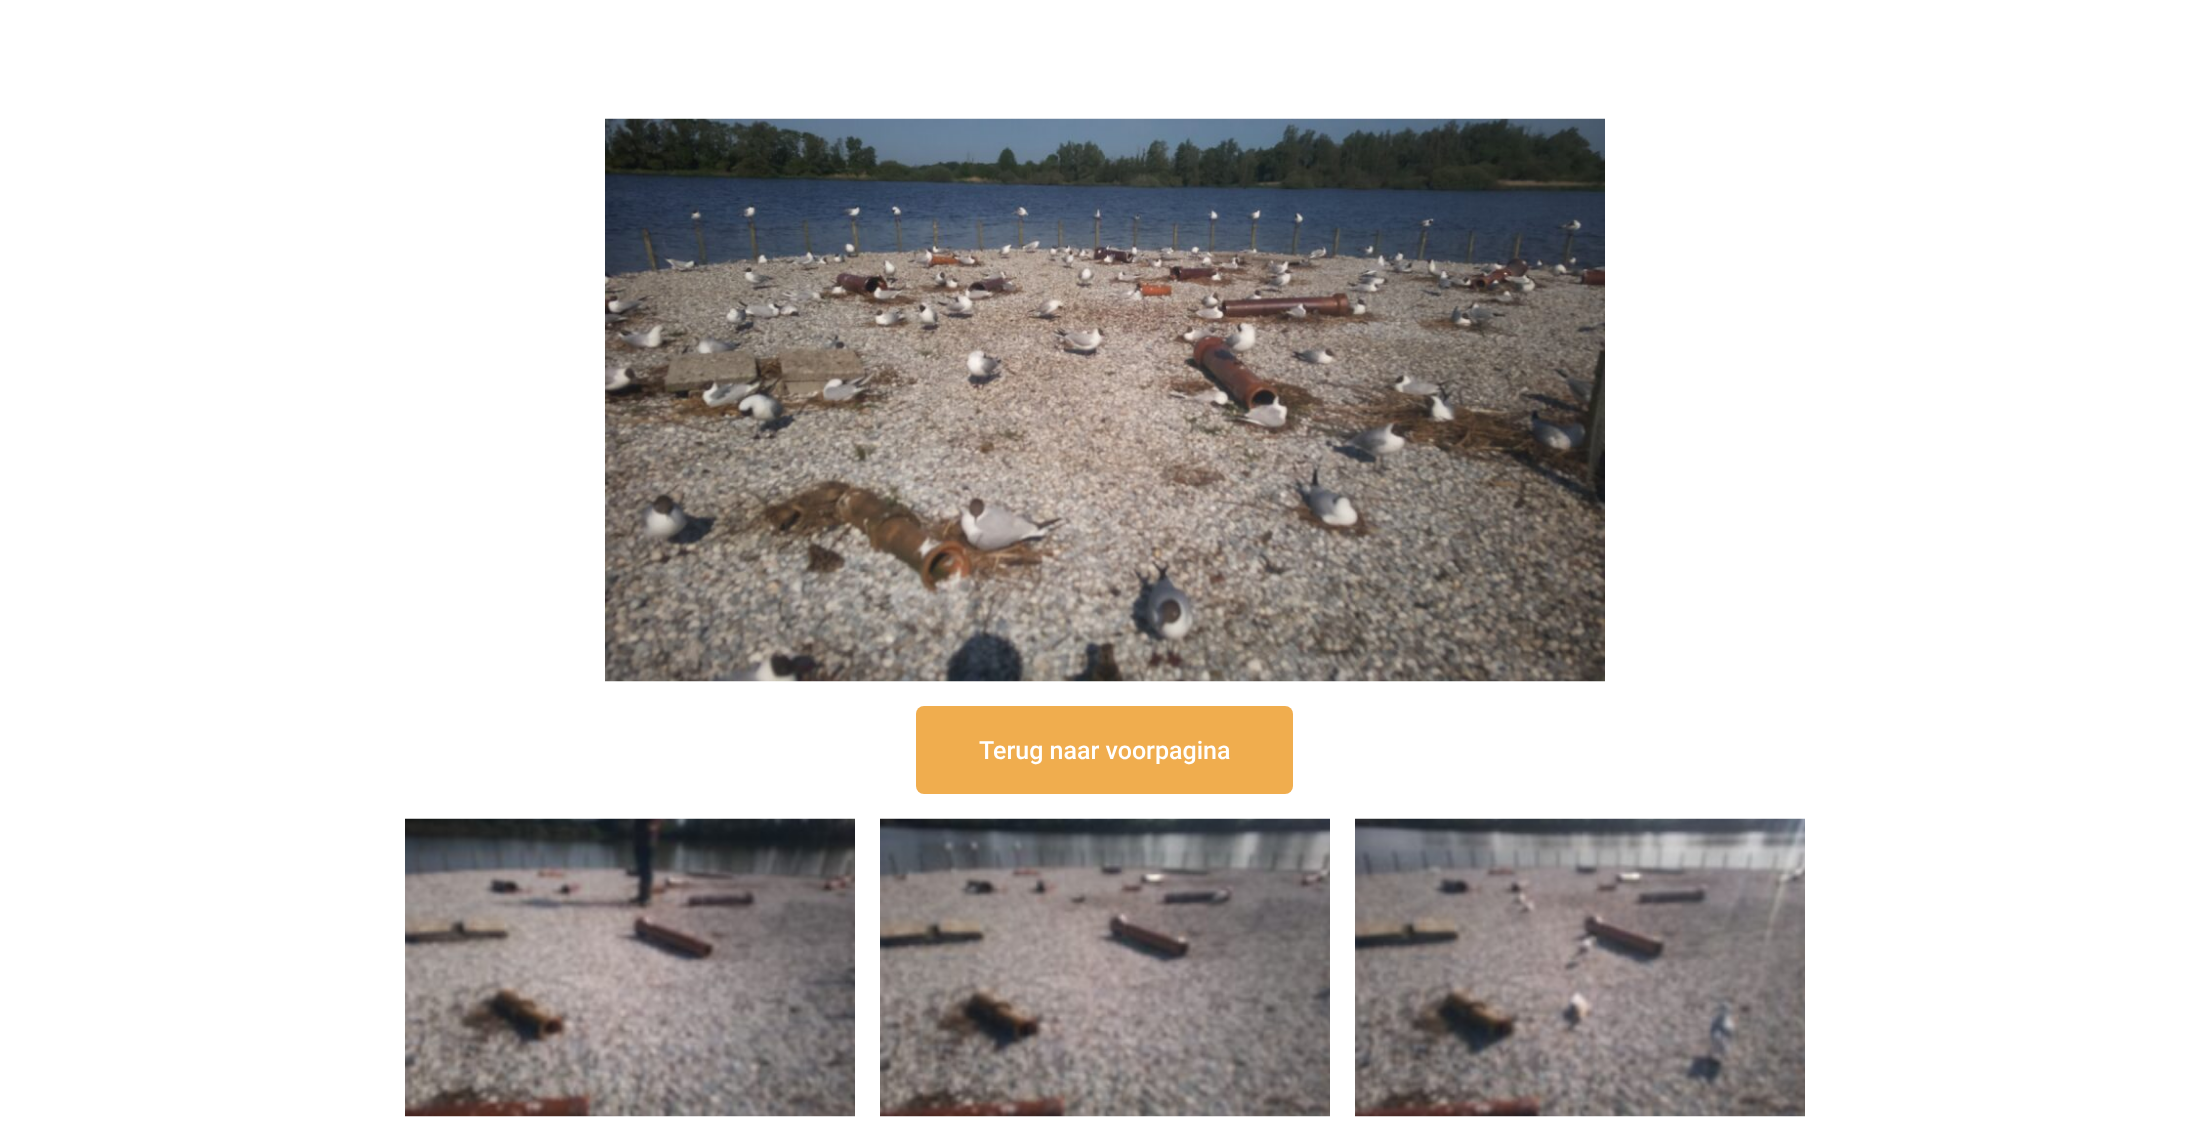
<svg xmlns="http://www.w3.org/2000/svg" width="2208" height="1137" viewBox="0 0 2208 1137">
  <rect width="100%" height="100%" fill="#fff"/>
  <image x="605" y="118" width="1000" height="564" href="img/1.png"/>
  <rect x="916" y="706" width="377" height="88" rx="8" fill="#f0ad4e"/>
  <image x="405" y="818" width="450" height="299" href="img/2.png"/>
  <image x="880" y="818" width="450" height="299" href="img/3.png"/>
  <image x="1355" y="818" width="450" height="299" href="img/4.png"/>
  <text x="979" y="759" font-family="Roboto" font-size="25" font-weight="500" fill="#fff">Terug naar voorpagina</text>
</svg>
